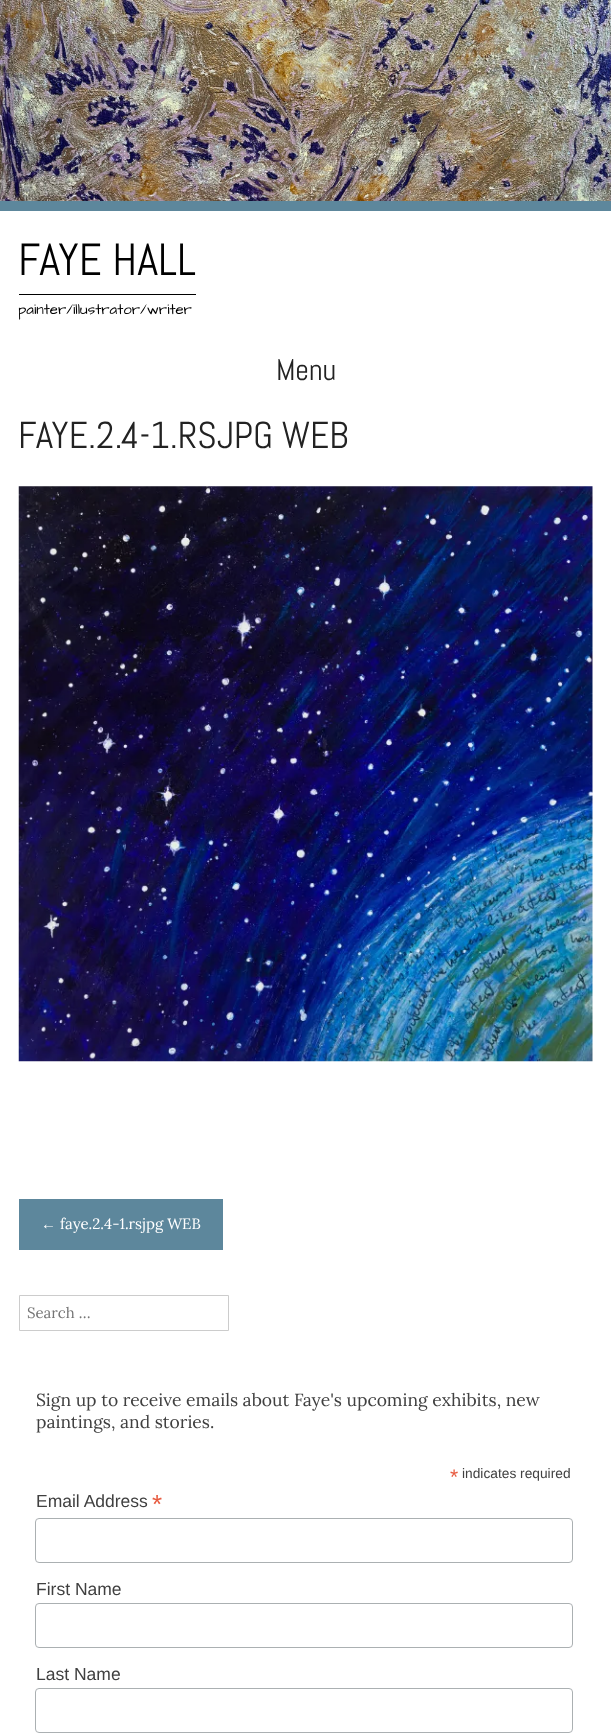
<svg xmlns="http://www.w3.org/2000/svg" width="611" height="1736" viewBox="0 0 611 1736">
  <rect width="100%" height="100%" fill="#fff"/>
  <image x="0" y="0" width="611" height="201" href="img/1.png"/>
  <path d="M0 201h611v10H0z" fill="#5d879c"/>
  <path d="M19 294h177v1H19z" fill="#000"/>
  <image x="18" y="486" width="575" height="576" href="img/2.png"/>
  <path d="M19 1199h204v51H19z" fill="#5d879c"/>
  <path d="M19.5 1295.5h209v35H19.5z" fill="none" stroke="#ccc"/>
  <rect x="35.5" y="1518.5" width="537" height="44" rx="3.5" fill="none" stroke="#abb0b2"/>
  <rect x="35.5" y="1603.5" width="537" height="44" rx="3.5" fill="none" stroke="#abb0b2"/>
  <rect x="35.5" y="1688.5" width="537" height="44" rx="3.5" fill="none" stroke="#abb0b2"/>
  <text x="18" y="275" font-family="Abel" font-size="45" fill="#000">FAYE HALL</text>
  <text x="18" y="314" font-family="Architects Daughter" font-size="15" fill="#000">painter/illustrator/writer</text>
  <text x="276" y="380" font-family="Abel" font-size="30" fill="#222">Menu</text>
  <text x="18" y="448" font-family="Abel" font-size="37.5" fill="#222">FAYE.2.4-1.RSJPG WEB</text>
  <text x="41" y="1229" font-family="Liberation Serif" font-size="15" fill="#fff">←</text>
  <text x="60" y="1229" font-family="Lora" font-size="15" fill="#fff">faye.2.4-1.rsjpg WEB</text>
  <text x="27" y="1318" font-family="Lora" font-size="15" fill="#757575">Search …</text>
  <g font-family="Lora" font-size="17.5" fill="#404040">
    <text x="36" y="1406">Sign up to receive emails about Faye's upcoming exhibits, new</text>
    <text x="36" y="1428">paintings, and stories.</text>
  </g>
  <text x="450" y="1484" font-family="Liberation Sans" font-size="21" fill="#e85c41">*</text>
  <text x="462" y="1478" font-family="Liberation Sans" font-size="13.75" fill="#404040">indicates required</text>
  <text x="36" y="1507" font-family="Liberation Sans" font-size="17.5" fill="#404040">Email Address</text>
  <text x="152" y="1513" font-family="Liberation Sans" font-size="26" fill="#e85c41">*</text>
  <g font-family="Liberation Sans" font-size="17.5" fill="#404040">
    <text x="36" y="1595">First Name</text>
    <text x="36" y="1680">Last Name</text>
  </g>
</svg>
